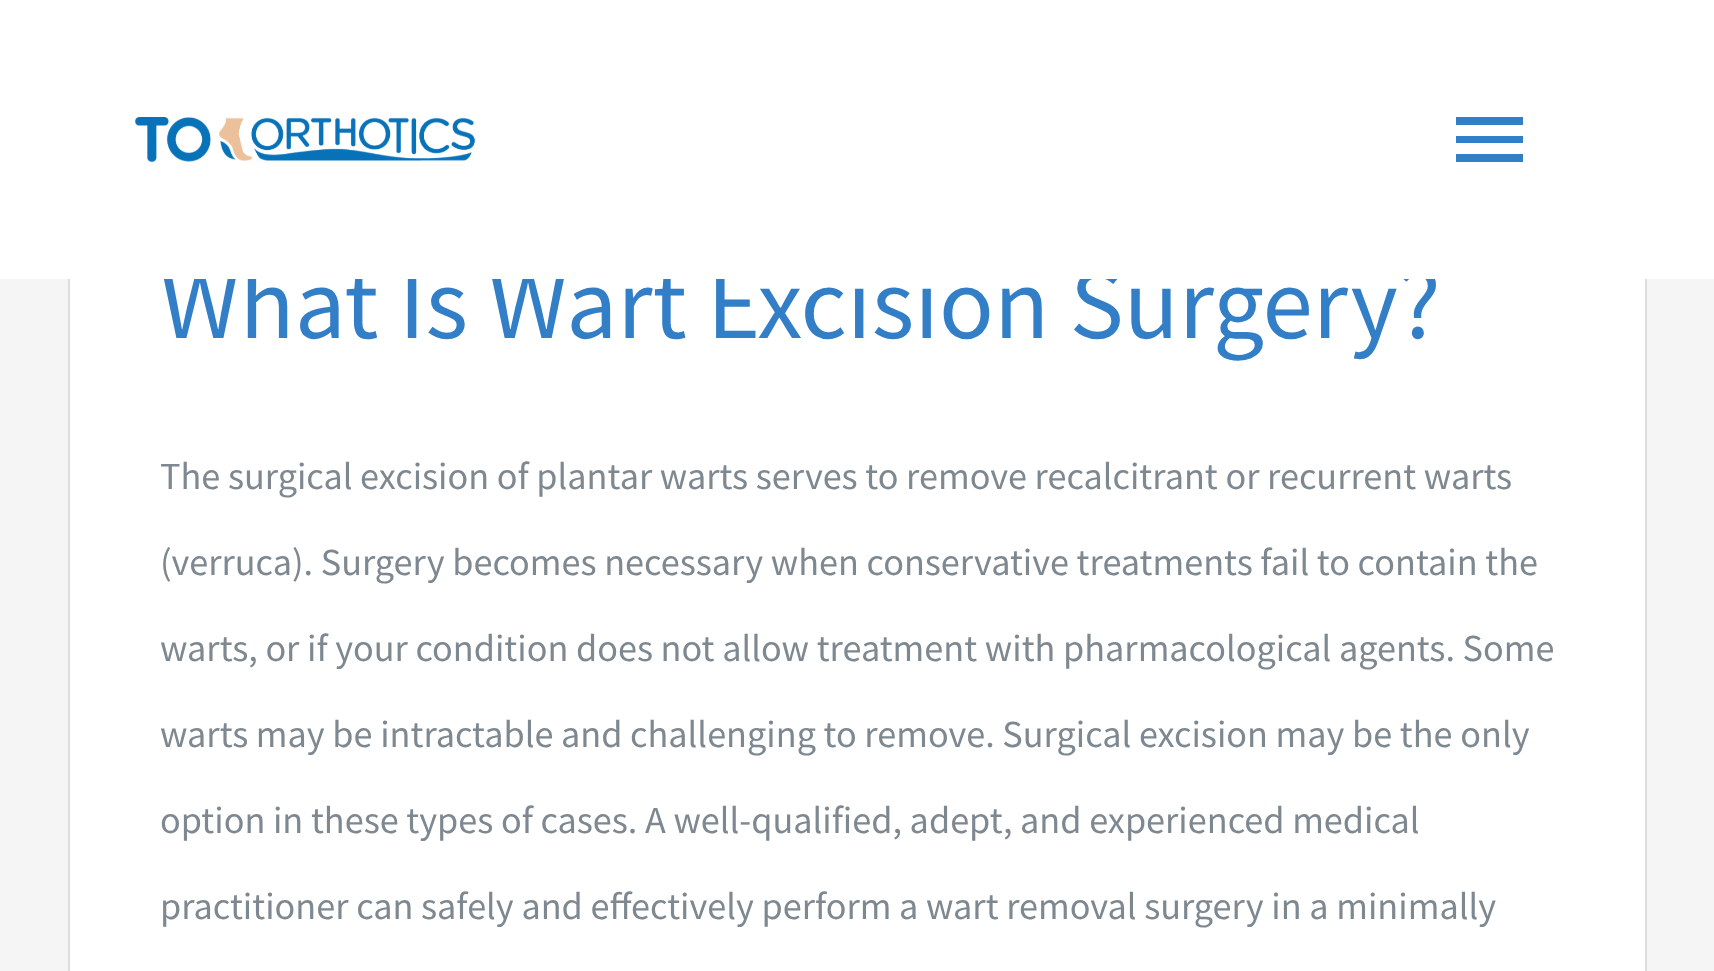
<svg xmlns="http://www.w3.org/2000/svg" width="1714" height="971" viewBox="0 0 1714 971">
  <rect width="100%" height="100%" fill="#f5f5f5"/>
  <path d="M70 279h1575v692H70z" fill="#fff"/>
  <path d="M69 147h1577v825H69z" fill="none" stroke="#ddd" stroke-width="2"/>
  <text x="160" y="338" font-family="Source Sans Pro" font-size="101.3" fill="#327ec7">What Is Wart Excision Surgery?</text>
  <path d="M0 0h1714v279H0z" fill="#fff"/>
  <image x="135" y="117" width="340" height="45" href="img/1.png"/>
  <path d="M1456 117H1523V125H1456ZM1456 143V136H1523V143ZM1456 162V154H1523V162Z" fill="#327ec7"/>
  <g font-family="Source Sans Pro" font-size="38.25" fill="#7e8890">
    <text x="160" y="489">The surgical excision of plantar warts serves to remove recalcitrant or recurrent warts</text>
    <text x="160" y="575">(verruca). Surgery becomes necessary when conservative treatments fail to contain the</text>
    <text x="160" y="661">warts, or if your condition does not allow treatment with pharmacological agents. Some</text>
    <text x="160" y="747">warts may be intractable and challenging to remove. Surgical excision may be the only</text>
    <text x="160" y="833">option in these types of cases. A well-qualified, adept, and experienced medical</text>
    <text x="160" y="919">practitioner can safely and effectively perform a wart removal surgery in a minimally</text>
  </g>
</svg>
